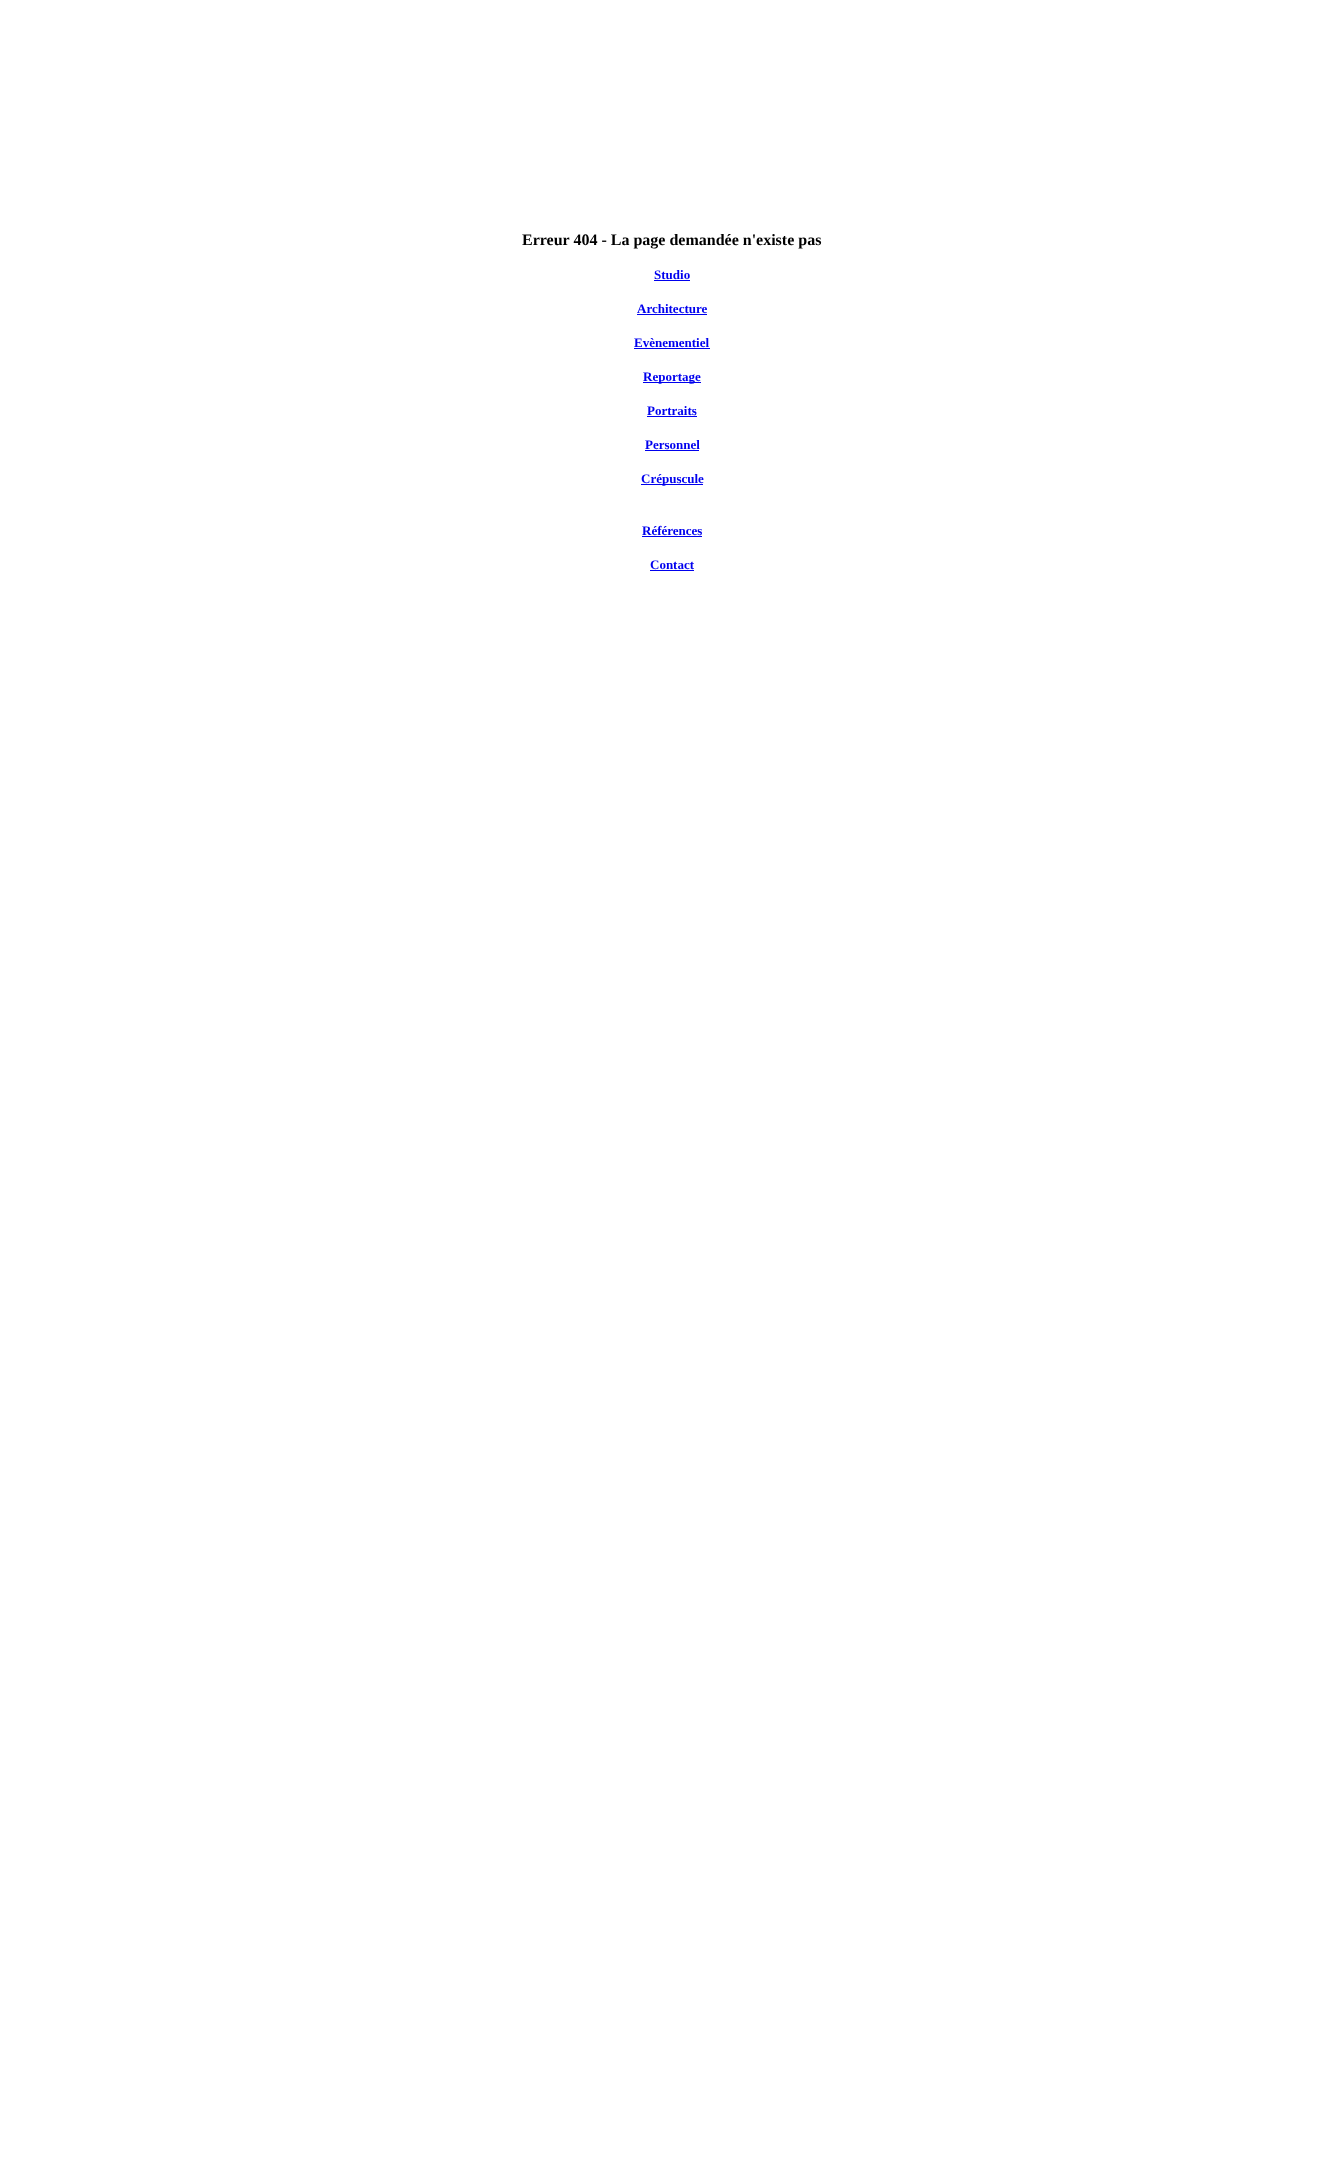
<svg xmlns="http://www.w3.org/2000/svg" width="1344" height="2168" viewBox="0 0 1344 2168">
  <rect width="100%" height="100%" fill="#fff"/>
  <path d="M654 280h36v1H654z" fill="#00e"/>
  <path d="M637 314h70v1H637z" fill="#00e"/>
  <path d="M634 348h76v1H634z" fill="#00e"/>
  <path d="M643 382h58v1H643z" fill="#00e"/>
  <path d="M647 416h50v1H647z" fill="#00e"/>
  <path d="M645 450h54v1H645z" fill="#00e"/>
  <path d="M641 484h62v1H641z" fill="#00e"/>
  <path d="M642 536h60v1H642z" fill="#00e"/>
  <path d="M650 570h44v1H650z" fill="#00e"/>
  <text x="522" y="245" font-family="Liberation Serif" font-size="16" font-weight="bold" fill="#000">Erreur 404 - La page demandée n'existe pas</text>
  <g font-family="Liberation Serif" font-size="13" font-weight="bold" fill="#00e">
    <text x="654" y="279">Studio</text>
    <text x="637" y="313">Architecture</text>
    <text x="634" y="347">Evènementiel</text>
    <text x="643" y="381">Reportage</text>
    <text x="647" y="415">Portraits</text>
    <text x="645" y="449">Personnel</text>
    <text x="641" y="483">Crépuscule</text>
    <text x="642" y="535">Références</text>
    <text x="650" y="569">Contact</text>
  </g>
</svg>
